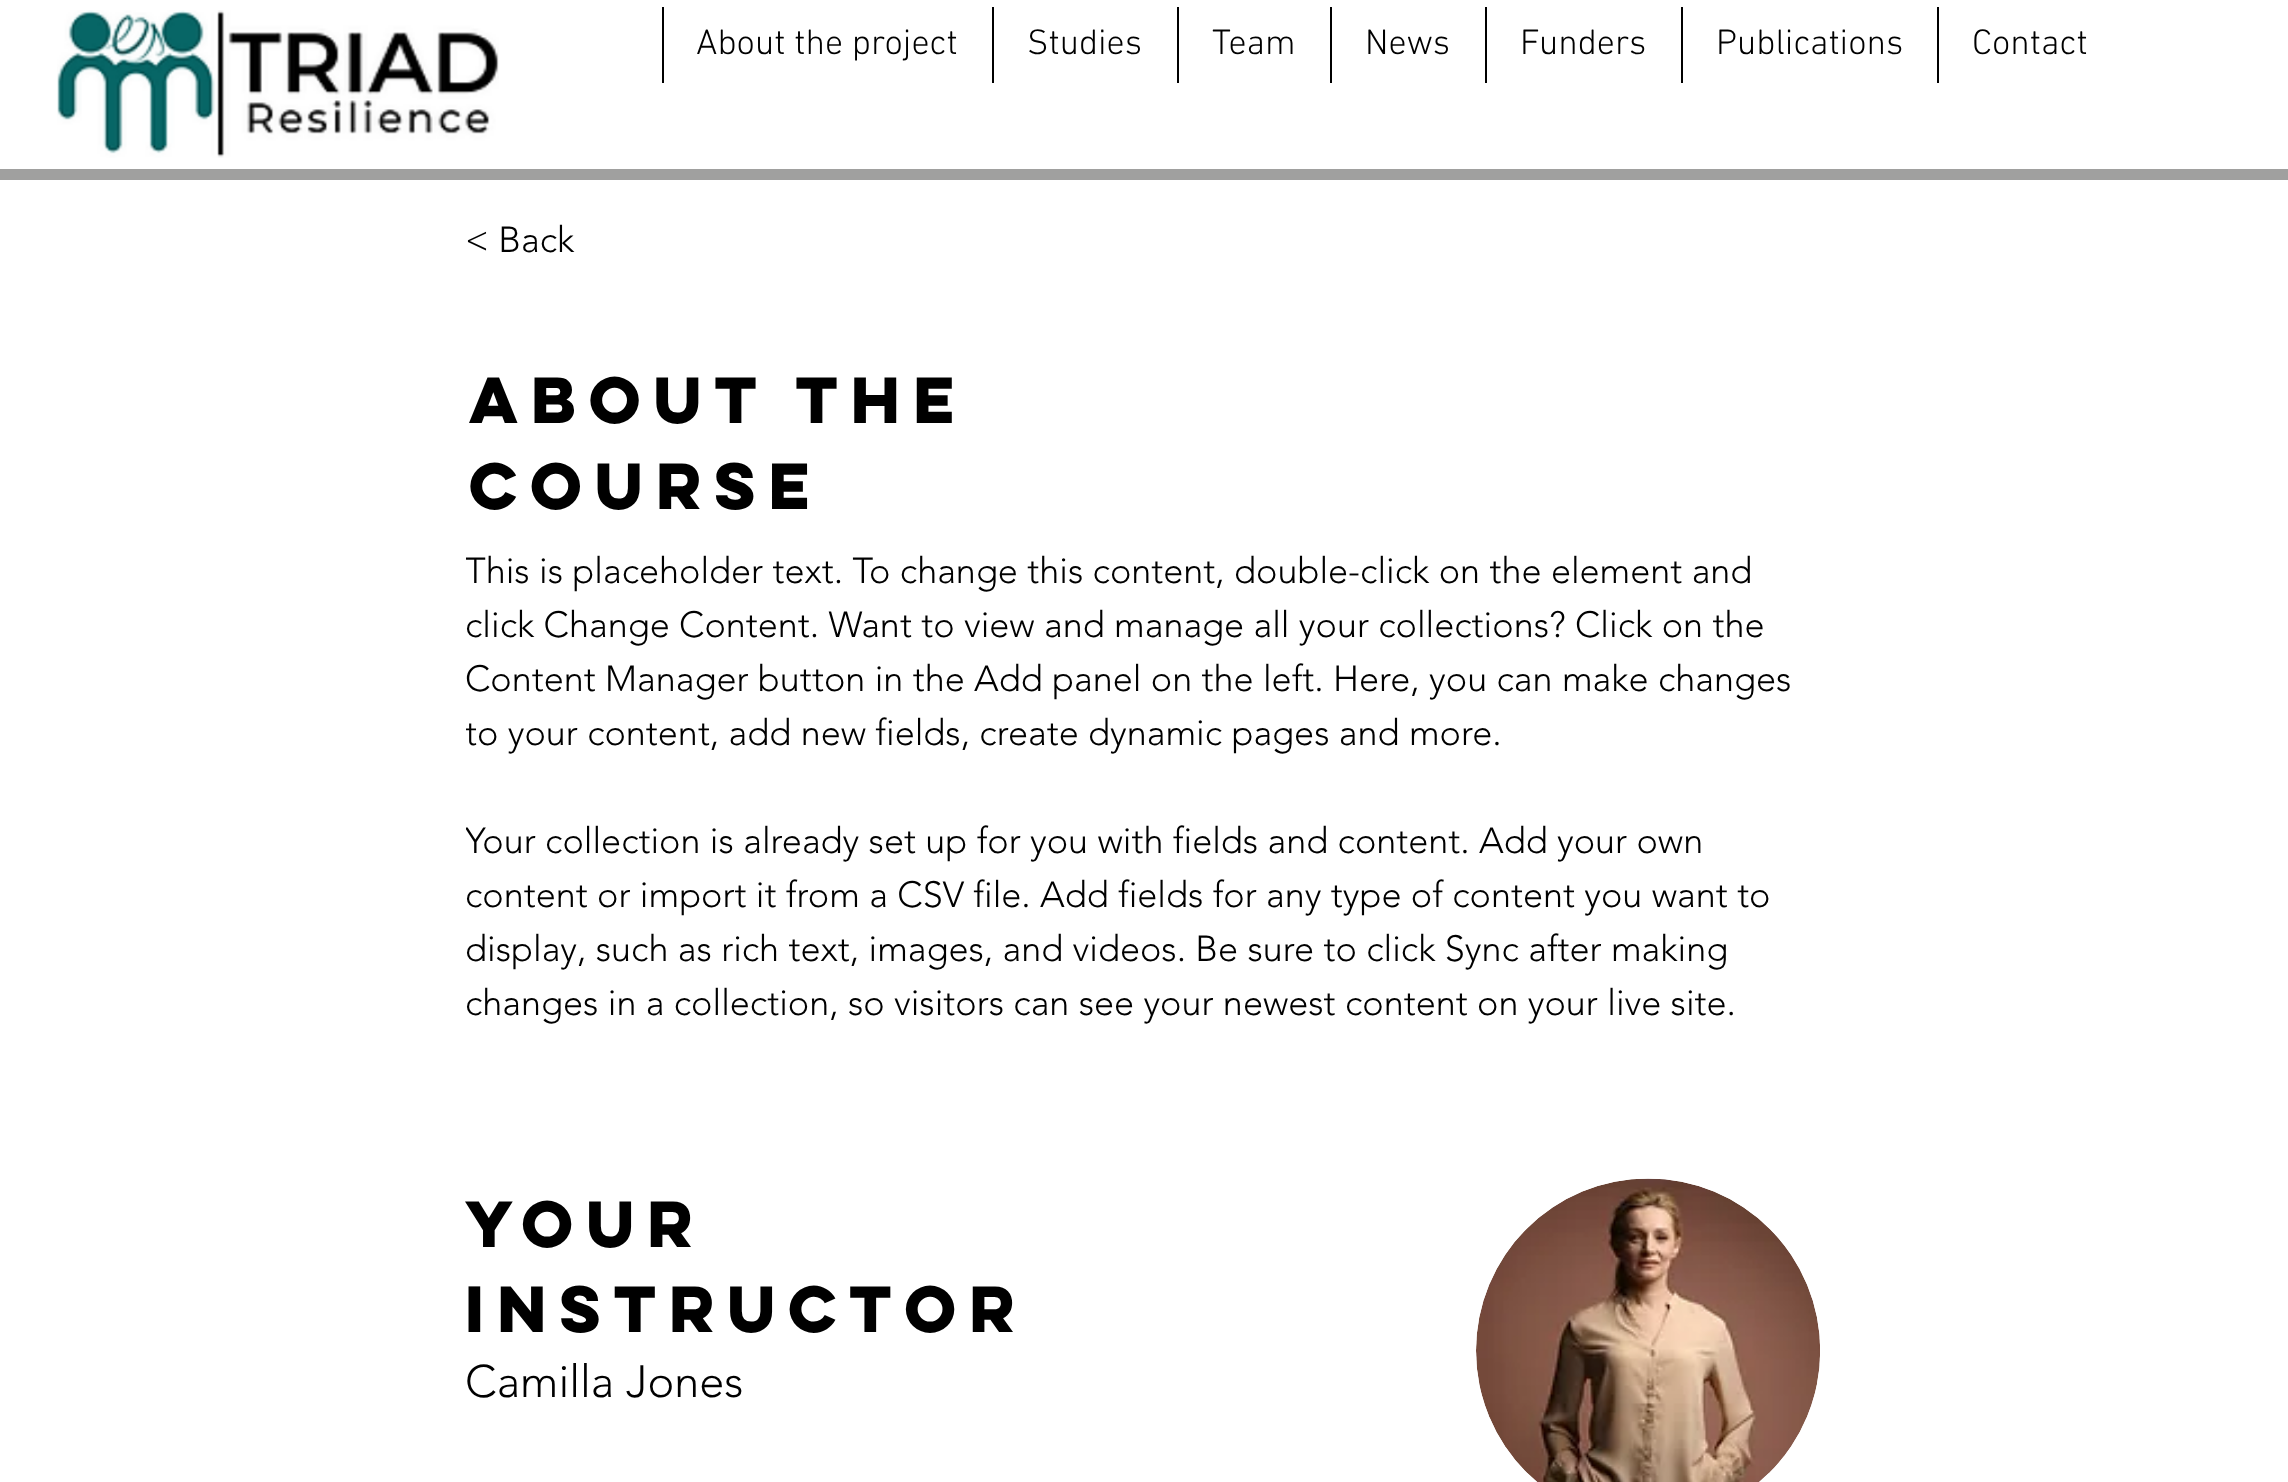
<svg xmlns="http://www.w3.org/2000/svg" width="2288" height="1482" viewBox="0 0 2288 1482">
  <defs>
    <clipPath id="clip1"><path d="M466 545h1350v486H466z"/></clipPath>
  </defs>
  <rect width="100%" height="100%" fill="#fff"/>
  <image x="57" y="10" width="442" height="148" href="img/1.png"/>
  <path d="M662 7h2v76H662z" fill="#000"/>
  <path d="M992 7h2v76H992z" fill="#000"/>
  <path d="M1177 7h2v76H1177z" fill="#000"/>
  <path d="M1330 7h2v76H1330z" fill="#000"/>
  <path d="M1485 7h2v76H1485z" fill="#000"/>
  <path d="M1681 7h2v76H1681z" fill="#000"/>
  <path d="M1937 7h2v76H1937z" fill="#000"/>
  <path d="M0 169h2288v11H0z" fill="#a0a09f"/>
  <image x="1476" y="1178" width="344" height="304" href="img/2.png"/>
  <g font-family="'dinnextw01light'" font-size="36" font-weight="300" fill="#000">
    <text x="696" y="54">About the project</text>
    <text x="1027" y="54">Studies</text>
    <text x="1212" y="54">Team</text>
    <text x="1365" y="54">News</text>
    <text x="1520" y="54">Funders</text>
    <text x="1716" y="54">Publications</text>
    <text x="1972" y="54">Contact</text>
  </g>
  <text x="465" y="252" font-family="'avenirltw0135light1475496'" font-size="36" font-weight="300" fill="#000">&lt; Back</text>
  <g font-family="'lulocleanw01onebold'" font-size="58.5" font-weight="bold" fill="#000">
    <text x="469" y="423">About the</text>
    <text x="469" y="509">Course</text>
  </g>
  <g clip-path="url(#clip1)">
    <text x="465" y="583" font-family="'avenirltw0135light1475496'" font-size="36" font-weight="300" fill="#000">This is placeholder text. To change this content, double-click on the element and</text>
  </g>
  <g font-family="'avenirltw0135light1475496'" font-size="36" font-weight="300" fill="#000">
    <text x="465" y="637">click Change Content. Want to view and manage all your collections? Click on the</text>
    <text x="465" y="691">Content Manager button in the Add panel on the left. Here, you can make changes</text>
  </g>
  <g clip-path="url(#clip1)">
    <g font-family="'avenirltw0135light1475496'" font-size="36" font-weight="300" fill="#000">
      <text x="465" y="745">to your content, add new fields, create dynamic pages and more.</text>
      <text x="465" y="853">Your collection is already set up for you with fields and content. Add your own</text>
    </g>
  </g>
  <g font-family="'avenirltw0135light1475496'" font-size="36" font-weight="300" fill="#000">
    <text x="465" y="907">content or import it from a CSV file. Add fields for any type of content you want to</text>
    <text x="465" y="961">display, such as rich text, images, and videos. Be sure to click Sync after making</text>
    <text x="465" y="1015">changes in a collection, so visitors can see your newest content on your live site.</text>
  </g>
  <g font-family="'lulocleanw01onebold'" font-size="58.5" font-weight="bold" fill="#000">
    <text x="465" y="1247">Your</text>
    <text x="465" y="1332">Instructor</text>
  </g>
  <text x="465" y="1397" font-family="'avenirltw0135light1475496'" font-size="45" font-weight="300" fill="#000">Camilla Jones</text>
</svg>
